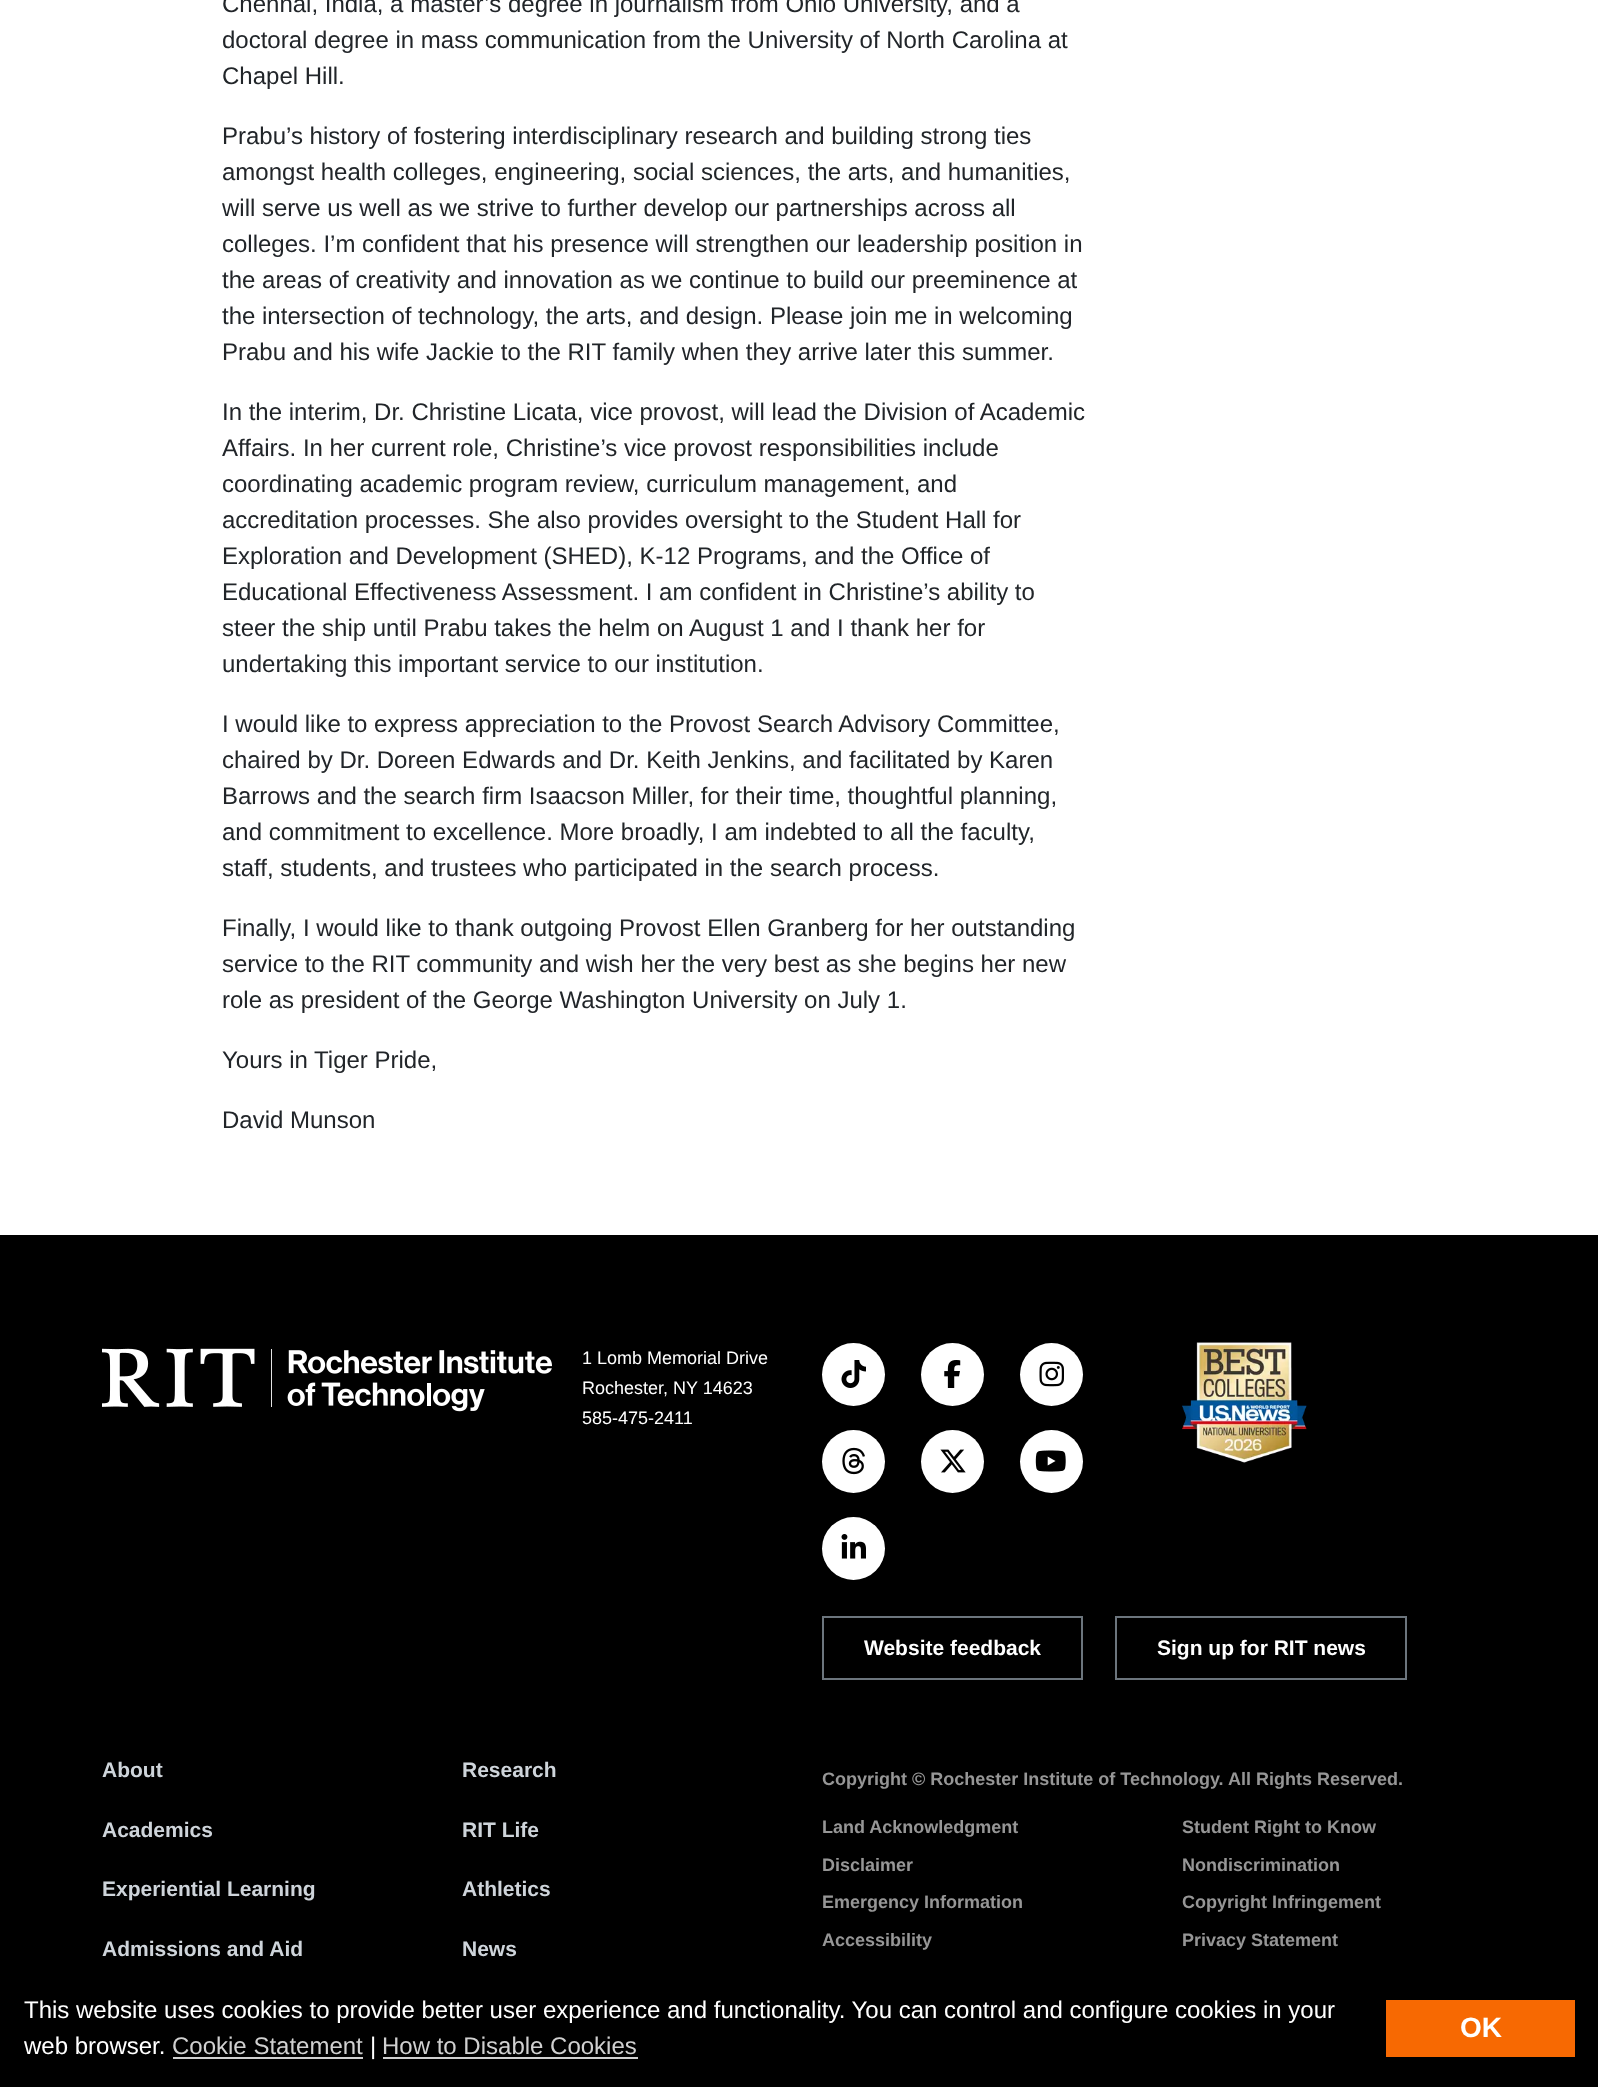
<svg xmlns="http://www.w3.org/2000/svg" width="1598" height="2087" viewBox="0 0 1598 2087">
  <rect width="100%" height="100%" fill="#fff"/>
  <path d="M0 1235h1598v852H0z" fill="#000"/>
  <image x="102" y="1348" width="450" height="64" href="img/1.png"/>
  <circle cx="853.5" cy="1374.5" r="31.5" fill="#fff"/>
  <image x="841" y="1360" width="25" height="28" href="img/2.png"/>
  <circle cx="952.5" cy="1374.5" r="31.5" fill="#fff"/>
  <image x="944" y="1360" width="17" height="28" href="img/3.png"/>
  <circle cx="1051.5" cy="1374.5" r="31.5" fill="#fff"/>
  <image x="1039" y="1361" width="25" height="26" href="img/4.png"/>
  <circle cx="853.5" cy="1461.5" r="31.5" fill="#fff"/>
  <image x="842" y="1447" width="23" height="28" href="img/5.png"/>
  <circle cx="952.5" cy="1461.5" r="31.5" fill="#fff"/>
  <image x="940" y="1449" width="26" height="24" href="img/6.png"/>
  <circle cx="1051.5" cy="1461.5" r="31.5" fill="#fff"/>
  <image x="1035" y="1450" width="31" height="22" href="img/7.png"/>
  <circle cx="853.5" cy="1548.5" r="31.5" fill="#fff"/>
  <image x="841" y="1534" width="25" height="25" href="img/8.png"/>
  <image x="1182" y="1342" width="125" height="121" href="img/9.png"/>
  <path d="M823 1617h259v62H823z" fill="none" stroke="#6c757d" stroke-width="2"/>
  <path d="M1116 1617h290v62H1116z" fill="none" stroke="#6c757d" stroke-width="2"/>
  <path d="M173 2057h190v2H173z" fill="#d0d0d0"/>
  <path d="M383 2057h255v2H383z" fill="#d0d0d0"/>
  <path d="M1386 2000h189v57H1386z" fill="#f76902"/>
  <g font-family="Liberation Sans" font-size="24" fill="#212529">
    <text x="222" y="12">Chennai, India, a master’s degree in journalism from Ohio University, and a</text>
    <text x="222" y="48">doctoral degree in mass communication from the University of North Carolina at</text>
    <text x="222" y="84">Chapel Hill.</text>
    <text x="222" y="144">Prabu’s history of fostering interdisciplinary research and building strong ties</text>
    <text x="222" y="180">amongst health colleges, engineering, social sciences, the arts, and humanities,</text>
    <text x="222" y="216">will serve us well as we strive to further develop our partnerships across all</text>
    <text x="222" y="252">colleges. I’m confident that his presence will strengthen our leadership position in</text>
    <text x="222" y="288">the areas of creativity and innovation as we continue to build our preeminence at</text>
    <text x="222" y="324">the intersection of technology, the arts, and design. Please join me in welcoming</text>
    <text x="222" y="360">Prabu and his wife Jackie to the RIT family when they arrive later this summer.</text>
    <text x="222" y="420">In the interim, Dr. Christine Licata, vice provost, will lead the Division of Academic</text>
    <text x="222" y="456">Affairs. In her current role, Christine’s vice provost responsibilities include</text>
    <text x="222" y="492">coordinating academic program review, curriculum management, and</text>
    <text x="222" y="528">accreditation processes. She also provides oversight to the Student Hall for</text>
    <text x="222" y="564">Exploration and Development (SHED), K-12 Programs, and the Office of</text>
    <text x="222" y="600">Educational Effectiveness Assessment. I am confident in Christine’s ability to</text>
    <text x="222" y="636">steer the ship until Prabu takes the helm on August 1 and I thank her for</text>
    <text x="222" y="672">undertaking this important service to our institution.</text>
    <text x="222" y="732">I would like to express appreciation to the Provost Search Advisory Committee,</text>
    <text x="222" y="768">chaired by Dr. Doreen Edwards and Dr. Keith Jenkins, and facilitated by Karen</text>
    <text x="222" y="804">Barrows and the search firm Isaacson Miller, for their time, thoughtful planning,</text>
    <text x="222" y="840">and commitment to excellence. More broadly, I am indebted to all the faculty,</text>
    <text x="222" y="876">staff, students, and trustees who participated in the search process.</text>
    <text x="222" y="936">Finally, I would like to thank outgoing Provost Ellen Granberg for her outstanding</text>
    <text x="222" y="972">service to the RIT community and wish her the very best as she begins her new</text>
    <text x="222" y="1008">role as president of the George Washington University on July 1.</text>
    <text x="222" y="1068">Yours in Tiger Pride,</text>
    <text x="222" y="1128">David Munson</text>
  </g>
  <g font-family="Liberation Sans" font-size="18" fill="#fff">
    <text x="582" y="1364">1 Lomb Memorial Drive</text>
    <text x="582" y="1394">Rochester, NY 14623</text>
    <text x="582" y="1424">585-475-2411</text>
  </g>
  <g font-family="Liberation Sans" font-size="21" font-weight="bold" fill="#fff">
    <text x="864" y="1655">Website feedback</text>
    <text x="1157" y="1655">Sign up for RIT news</text>
  </g>
  <g font-family="Liberation Sans" font-size="21" font-weight="bold" fill="#ced4da">
    <text x="102" y="1777">About</text>
    <text x="102" y="1837">Academics</text>
    <text x="102" y="1896">Experiential Learning</text>
    <text x="102" y="1956">Admissions and Aid</text>
    <text x="462" y="1777">Research</text>
    <text x="462" y="1837">RIT Life</text>
    <text x="462" y="1896">Athletics</text>
    <text x="462" y="1956">News</text>
  </g>
  <g font-family="Liberation Sans" font-size="18" font-weight="bold" fill="#969696">
    <text x="822" y="1785">Copyright © Rochester Institute of Technology. All Rights Reserved.</text>
    <text x="822" y="1833">Land Acknowledgment</text>
    <text x="1182" y="1833">Student Right to Know</text>
    <text x="822" y="1871">Disclaimer</text>
    <text x="1182" y="1871">Nondiscrimination</text>
    <text x="822" y="1908">Emergency Information</text>
    <text x="1182" y="1908">Copyright Infringement</text>
    <text x="822" y="1946">Accessibility</text>
    <text x="1182" y="1946">Privacy Statement</text>
  </g>
  <g font-family="Liberation Sans" font-size="24" fill="#fff">
    <text x="24" y="2018">This website uses cookies to provide better user experience and functionality. You can control and configure cookies in your</text>
    <text x="24" y="2054">web browser.</text>
  </g>
  <text x="172" y="2054" font-family="Liberation Sans" font-size="24" fill="#d0d0d0">Cookie Statement</text>
  <text x="370" y="2054" font-family="Liberation Sans" font-size="24" fill="#fff">|</text>
  <text x="382" y="2054" font-family="Liberation Sans" font-size="24" fill="#d0d0d0">How to Disable Cookies</text>
  <text x="1460" y="2037" font-family="Liberation Sans" font-size="28" font-weight="bold" fill="#fff">OK</text>
</svg>
